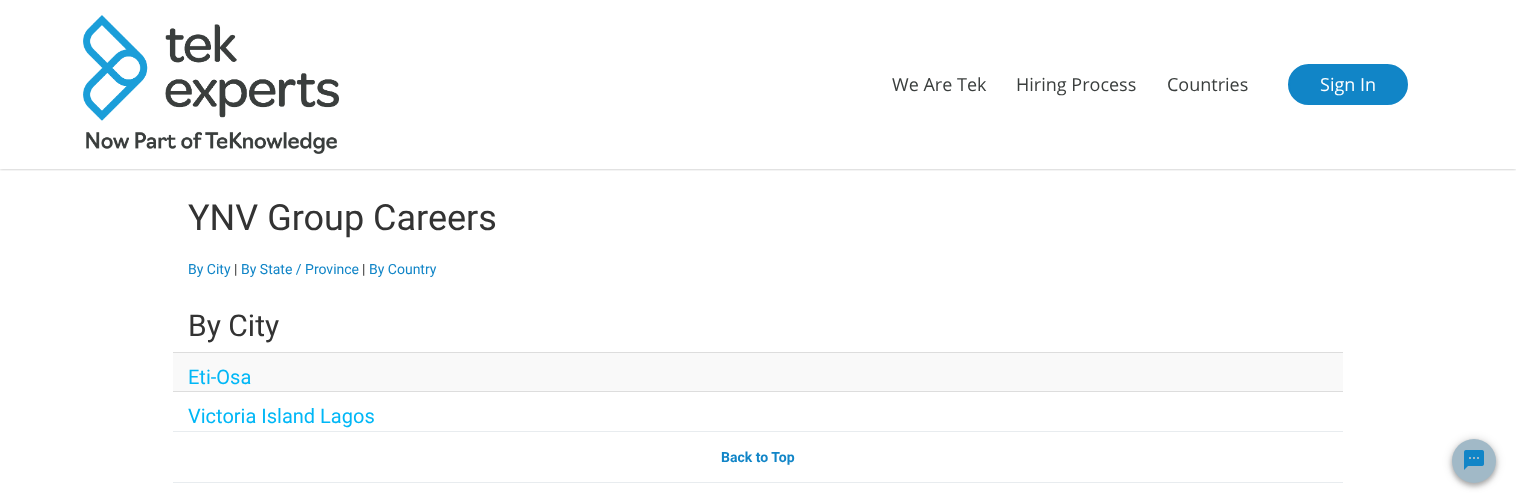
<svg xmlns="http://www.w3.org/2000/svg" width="1516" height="503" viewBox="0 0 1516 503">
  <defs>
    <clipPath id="clip1"><path d="M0 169h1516v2H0z"/></clipPath>
  </defs>
  <rect width="100%" height="100%" fill="#fff"/>
  <g clip-path="url(#clip1)">
    <path d="M0 0h1516v169H0z" fill="#0000004d" filter="blur(1.5px)"/>
  </g>
  <image x="83" y="15" width="256" height="139" href="img/1.png"/>
  <rect x="1289" y="65" width="118" height="39" rx="19.5" fill="#1185c7" stroke="#1185c7" stroke-width="2"/>
  <path d="M173 431h1170v1H173z" fill="#e8ecef"/>
  <path d="M173 353h1170v38H173z" fill="#f9f9f9"/>
  <path d="M173 352h1170v1H173z" fill="#ddd"/>
  <path d="M173 391h1170v1H173z" fill="#ddd"/>
  <path d="M173 482h1170v1H173z" fill="#e8ecef"/>
  <rect x="1452" y="440" width="44" height="44" rx="22" fill="#00000033" filter="blur(5px)"/>
  <rect x="1452" y="443" width="44" height="44" rx="22" fill="#0000001f" filter="blur(2.5px)"/>
  <rect x="1452" y="441" width="44" height="44" rx="22" fill="#00000024" filter="blur(2px)"/>
  <circle cx="1474" cy="461" r="22" fill="#a1b9c7"/>
  <image x="1464" y="450" width="20" height="20" href="img/2.png"/>
  <g font-family="Open Sans" font-size="18" fill="#3a3e3d">
    <text x="892" y="91">We Are Tek</text>
    <text x="1016" y="91">Hiring Process</text>
    <text x="1167" y="91">Countries</text>
  </g>
  <text x="1320" y="91" font-family="Open Sans" font-size="18" fill="#fff">Sign In</text>
  <text x="188" y="230" font-family="Roboto" font-size="36" fill="#333">YNV Group Careers</text>
  <text x="188" y="274" font-family="Roboto" font-size="14" fill="#1185c7">By City</text>
  <text x="234" y="274" font-family="Roboto" font-size="14" fill="#333">|</text>
  <text x="241" y="274" font-family="Roboto" font-size="14" fill="#1185c7">By State / Province</text>
  <text x="362" y="274" font-family="Roboto" font-size="14" fill="#333">|</text>
  <text x="369" y="274" font-family="Roboto" font-size="14" fill="#1185c7">By Country</text>
  <text x="188" y="336" font-family="Roboto" font-size="30" fill="#333">By City</text>
  <g font-family="Roboto" font-size="20" fill="#00b7f6">
    <text x="188" y="384">Eti-Osa</text>
    <text x="188" y="423">Victoria Island Lagos</text>
  </g>
  <text x="721" y="462" font-family="Roboto" font-size="14" font-weight="bold" fill="#1185c7">Back to Top</text>
</svg>
